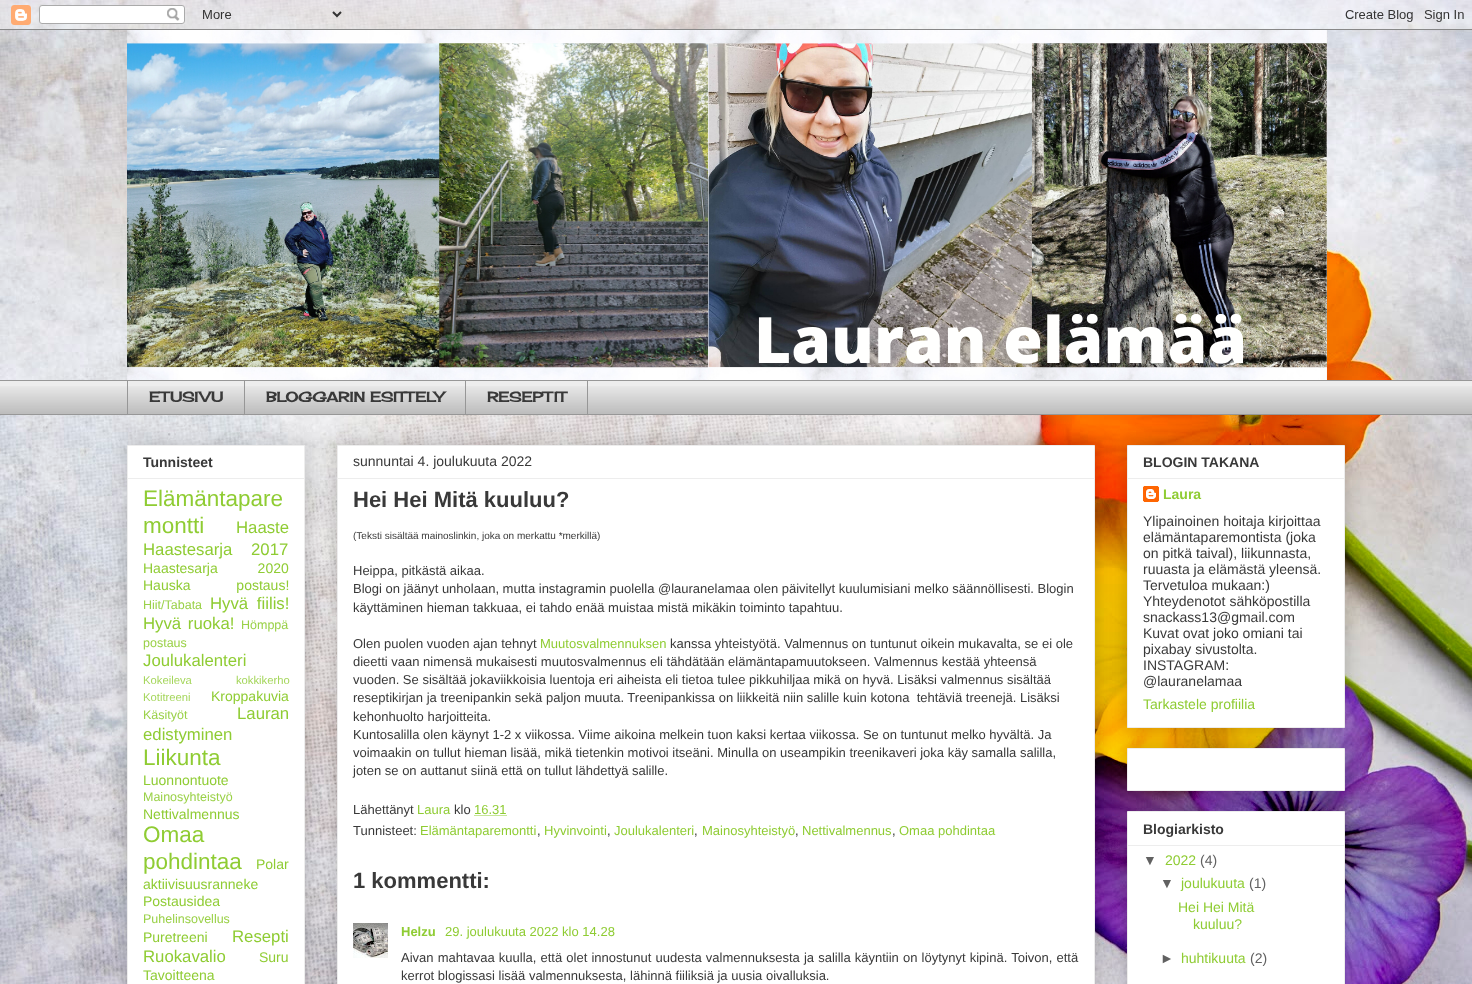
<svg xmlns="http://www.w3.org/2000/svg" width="1472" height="984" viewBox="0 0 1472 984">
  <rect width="100%" height="100%" fill="#fff"/>
  <image x="0" y="0" width="1472" height="984" href="img/1.png"/>
  <image x="0" y="0" width="1472" height="30" href="img/2.png"/>
  <image x="127" y="30" width="1200" height="350" href="img/3.png"/>
  <path d="M0 381h1472v33H0z" fill="#ededed"/>
  <image x="0" y="386" width="1472" height="28" href="img/4.png"/>
  <path d="M0 380h1472v1H0z" fill="#979797"/>
  <path d="M127 380h1v35H127z" fill="#979797"/>
  <path d="M244 380h1v35H244z" fill="#979797"/>
  <path d="M465.5 380.5h122v34H465.5z" fill="none" stroke="#979797"/>
  <path d="M0 414h1472v1H0z" fill="#979797"/>
  <path d="M127 445h178v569H127z" fill="#00000033" filter="blur(10px)"/>
  <path d="M127.5 445.5h177v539H127.5z" fill="#fff" stroke="#ededed"/>
  <path d="M128 478h176v1H128z" fill="#ededed"/>
  <path d="M337 445h758v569H337z" fill="#00000033" filter="blur(10px)"/>
  <path d="M337.5 445.5h757v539H337.5z" fill="#fff" stroke="#ededed"/>
  <path d="M338 478h756v1H338z" fill="#ededed"/>
  <path d="M474.5 815.5H507" fill="none" stroke="#8fcc33" stroke-dasharray="1 1"/>
  <image x="353" y="923" width="35" height="35" href="img/5.png"/>
  <path d="M1127 445h218v283H1127z" fill="#00000033" filter="blur(10px)"/>
  <path d="M1127.5 445.5h217v282H1127.5z" fill="#fff" stroke="#ededed"/>
  <path d="M1128 478h216v1H1128z" fill="#ededed"/>
  <image x="1143" y="486" width="16" height="16" href="img/6.png"/>
  <path d="M1127 748h218v43H1127z" fill="#00000033" filter="blur(10px)"/>
  <path d="M1127.5 748.5h217v42H1127.5z" fill="#fff" stroke="#ededed"/>
  <path d="M1127 811h218v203H1127z" fill="#00000033" filter="blur(10px)"/>
  <path d="M1127.5 811.5h217v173H1127.5z" fill="#fff" stroke="#ededed"/>
  <path d="M1128 845h216v1H1128z" fill="#ededed"/>
  <g font-family="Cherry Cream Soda" font-size="14" font-weight="bold" fill="#393939">
    <text x="149" y="402">ETUSIVU</text>
    <text x="266" y="402">BLOGGARIN ESITTELY</text>
    <text x="487" y="402">RESEPTIT</text>
  </g>
  <text x="143" y="467" font-family="Liberation Sans" font-size="14" font-weight="bold" fill="#393939">Tunnisteet</text>
  <g font-family="Liberation Sans" font-size="22.5" fill="#8fcc33">
    <text x="143" y="506">Elämäntapare</text>
    <text x="143" y="533">montti</text>
  </g>
  <g font-family="Liberation Sans" font-size="16.75" fill="#8fcc33">
    <text x="236" y="533">Haaste</text>
    <text x="143" y="555" word-spacing="14">Haastesarja 2017</text>
  </g>
  <g font-family="Liberation Sans" font-size="14" fill="#8fcc33">
    <text x="143" y="573" word-spacing="36">Haastesarja 2020</text>
    <text x="143" y="590" word-spacing="42">Hauska postaus!</text>
  </g>
  <text x="143" y="609" font-family="Liberation Sans" font-size="12.5" fill="#9ad147">Hiit/Tabata</text>
  <g font-family="Liberation Sans" font-size="16.75" fill="#8fcc33">
    <text x="210" y="609" word-spacing="4">Hyvä fiilis!</text>
    <text x="143" y="629" word-spacing="2">Hyvä ruoka!</text>
  </g>
  <g font-family="Liberation Sans" font-size="12.5" fill="#9ad147">
    <text x="241" y="629">Hömppä</text>
    <text x="143" y="647">postaus</text>
  </g>
  <text x="143" y="666" font-family="Liberation Sans" font-size="16.75" fill="#8fcc33">Joulukalenteri</text>
  <g font-family="Liberation Sans" font-size="11.25" fill="#a5d65c">
    <text x="143" y="684" word-spacing="41">Kokeileva kokkikerho</text>
    <text x="143" y="701">Kotitreeni</text>
  </g>
  <text x="211" y="701" font-family="Liberation Sans" font-size="14" fill="#8fcc33">Kroppakuvia</text>
  <text x="143" y="719" font-family="Liberation Sans" font-size="12.5" fill="#9ad147">Käsityöt</text>
  <g font-family="Liberation Sans" font-size="16.75" fill="#8fcc33">
    <text x="237" y="719">Lauran</text>
    <text x="143" y="740">edistyminen</text>
  </g>
  <text x="143" y="765" font-family="Liberation Sans" font-size="22.5" fill="#8fcc33">Liikunta</text>
  <text x="143" y="785" font-family="Liberation Sans" font-size="14" fill="#8fcc33">Luonnontuote</text>
  <text x="143" y="801" font-family="Liberation Sans" font-size="12.5" fill="#9ad147">Mainosyhteistyö</text>
  <text x="143" y="819" font-family="Liberation Sans" font-size="14" fill="#8fcc33">Nettivalmennus</text>
  <g font-family="Liberation Sans" font-size="22.5" fill="#8fcc33">
    <text x="143" y="842">Omaa</text>
    <text x="143" y="869">pohdintaa</text>
  </g>
  <g font-family="Liberation Sans" font-size="14" fill="#8fcc33">
    <text x="256" y="869">Polar</text>
    <text x="143" y="889">aktiivisuusranneke</text>
    <text x="143" y="906">Postausidea</text>
  </g>
  <text x="143" y="923" font-family="Liberation Sans" font-size="12.5" fill="#9ad147">Puhelinsovellus</text>
  <text x="143" y="942" font-family="Liberation Sans" font-size="14" fill="#8fcc33">Puretreeni</text>
  <g font-family="Liberation Sans" font-size="16.75" fill="#8fcc33">
    <text x="232" y="942">Resepti</text>
    <text x="143" y="962">Ruokavalio</text>
  </g>
  <g font-family="Liberation Sans" font-size="14" fill="#8fcc33">
    <text x="259" y="962">Suru</text>
    <text x="143" y="980">Tavoitteena</text>
  </g>
  <text x="353" y="466" font-family="Liberation Sans" font-size="14" fill="#393939">sunnuntai 4. joulukuuta 2022</text>
  <text x="353" y="507" font-family="Liberation Sans" font-size="22" font-weight="bold" fill="#393939">Hei Hei Mitä kuuluu?</text>
  <text x="353" y="539" font-family="Liberation Sans" font-size="10" fill="#393939">(Teksti sisältää mainoslinkin, joka on merkattu *merkillä)</text>
  <g font-family="Liberation Sans" font-size="13" fill="#393939">
    <text x="353" y="575">Heippa, pitkästä aikaa.</text>
    <text x="353" y="593">Blogi on jäänyt unholaan, mutta instagramin puolella @lauranelamaa olen päivitellyt kuulumisiani melko säännöllisesti. Blogin</text>
    <text x="353" y="612">käyttäminen hieman takkuaa, ei tahdo enää muistaa mistä mikäkin toiminto tapahtuu.</text>
    <text x="353" y="648">Olen puolen vuoden ajan tehnyt</text>
  </g>
  <text x="540" y="648" font-family="Liberation Sans" font-size="13" fill="#8fcc33">Muutosvalmennuksen</text>
  <g font-family="Liberation Sans" font-size="13" fill="#393939">
    <text x="670" y="648">kanssa yhteistyötä. Valmennus on tuntunut oikein mukavalta, se ei ole</text>
    <text x="353" y="666">dieetti vaan nimensä mukaisesti muutosvalmennus eli tähdätään elämäntapamuutokseen. Valmennus kestää yhteensä</text>
    <text x="353" y="684">vuoden. Se sisältää jokaviikkoisia luentoja eri aiheista eli tietoa tulee pikkuhiljaa mikä on hyvä. Lisäksi valmennus sisältää</text>
    <text x="353" y="702" xml:space="preserve">reseptikirjan ja treenipankin sekä paljon muuta. Treenipankissa on liikkeitä niin salille kuin kotona  tehtäviä treenejä. Lisäksi</text>
    <text x="353" y="721">kehonhuolto harjoitteita.</text>
    <text x="353" y="739">Kuntosalilla olen käynyt 1-2 x viikossa. Viime aikoina melkein tuon kaksi kertaa viikossa. Se on tuntunut melko hyvältä. Ja</text>
    <text x="353" y="757">voimaakin on tullut hieman lisää, mikä tietenkin motivoi itseäni. Minulla on useampikin treenikaveri joka käy samalla salilla,</text>
    <text x="353" y="775">joten se on auttanut siinä että on tullut lähdettyä salille.</text>
    <text x="353" y="814">Lähettänyt</text>
  </g>
  <text x="417" y="814" font-family="Liberation Sans" font-size="13" fill="#8fcc33">Laura</text>
  <text x="454" y="814" font-family="Liberation Sans" font-size="13" fill="#393939">klo</text>
  <text x="474" y="814" font-family="Liberation Sans" font-size="13" fill="#8fcc33">16.31</text>
  <text x="353" y="835" font-family="Liberation Sans" font-size="13" fill="#393939">Tunnisteet:</text>
  <text x="420" y="835" font-family="Liberation Sans" font-size="13" fill="#8fcc33">Elämäntaparemontti</text>
  <text x="537" y="835" font-family="Liberation Sans" font-size="13" fill="#393939">,</text>
  <text x="544" y="835" font-family="Liberation Sans" font-size="13" fill="#8fcc33">Hyvinvointi</text>
  <text x="607" y="835" font-family="Liberation Sans" font-size="13" fill="#393939">,</text>
  <text x="614" y="835" font-family="Liberation Sans" font-size="13" fill="#8fcc33">Joulukalenteri</text>
  <text x="694" y="835" font-family="Liberation Sans" font-size="13" fill="#393939">,</text>
  <text x="702" y="835" font-family="Liberation Sans" font-size="13" fill="#8fcc33">Mainosyhteistyö</text>
  <text x="795" y="835" font-family="Liberation Sans" font-size="13" fill="#393939">,</text>
  <text x="802" y="835" font-family="Liberation Sans" font-size="13" fill="#8fcc33">Nettivalmennus</text>
  <text x="892" y="835" font-family="Liberation Sans" font-size="13" fill="#393939">,</text>
  <text x="899" y="835" font-family="Liberation Sans" font-size="13" fill="#8fcc33">Omaa pohdintaa</text>
  <text x="353" y="888" font-family="Liberation Sans" font-size="22" font-weight="bold" fill="#393939">1 kommentti:</text>
  <text x="401" y="936" font-family="Liberation Sans" font-size="13" font-weight="bold" fill="#8fcc33">Helzu</text>
  <text x="445" y="936" font-family="Liberation Sans" font-size="13" fill="#8fcc33">29. joulukuuta 2022 klo 14.28</text>
  <g font-family="Liberation Sans" font-size="13" fill="#393939">
    <text x="401" y="962" word-spacing="0.5">Aivan mahtavaa kuulla, että olet innostunut uudesta valmennuksesta ja salilla käyntiin on löytynyt kipinä. Toivon, että</text>
    <text x="401" y="980">kerrot blogissasi lisää valmennuksesta, lähinnä fiiliksiä ja uusia oivalluksia.</text>
  </g>
  <text x="1143" y="467" font-family="Liberation Sans" font-size="14" font-weight="bold" fill="#393939">BLOGIN TAKANA</text>
  <text x="1163" y="499" font-family="Liberation Sans" font-size="14" font-weight="bold" fill="#8fcc33">Laura</text>
  <g font-family="Liberation Sans" font-size="14" fill="#393939">
    <text x="1143" y="526">Ylipainoinen hoitaja kirjoittaa</text>
    <text x="1143" y="542">elämäntaparemontista (joka</text>
    <text x="1143" y="558">on pitkä taival), liikunnasta,</text>
    <text x="1143" y="574">ruuasta ja elämästä yleensä.</text>
    <text x="1143" y="590">Tervetuloa mukaan:)</text>
    <text x="1143" y="606">Yhteydenotot sähköpostilla</text>
    <text x="1143" y="622">snackass13@gmail.com</text>
    <text x="1143" y="638">Kuvat ovat joko omiani tai</text>
    <text x="1143" y="654">pixabay sivustolta.</text>
    <text x="1143" y="670">INSTAGRAM:</text>
    <text x="1143" y="686">@lauranelamaa</text>
  </g>
  <text x="1143" y="709" font-family="Liberation Sans" font-size="14" fill="#8fcc33">Tarkastele profiilia</text>
  <text x="1143" y="834" font-family="Liberation Sans" font-size="14" font-weight="bold" fill="#393939">Blogiarkisto</text>
  <text x="1143" y="865" font-family="Liberation Sans" font-size="14" fill="#616161">▼</text>
  <text x="1165" y="865" font-family="Liberation Sans" font-size="14" fill="#8fcc33">2022</text>
  <g font-family="Liberation Sans" font-size="14" fill="#616161">
    <text x="1200" y="865">(4)</text>
    <text x="1160" y="888">▼</text>
  </g>
  <text x="1181" y="888" font-family="Liberation Sans" font-size="14" fill="#8fcc33">joulukuuta</text>
  <text x="1249" y="888" font-family="Liberation Sans" font-size="14" fill="#616161">(1)</text>
  <g font-family="Liberation Sans" font-size="14" fill="#8fcc33">
    <text x="1178" y="912">Hei Hei Mitä</text>
    <text x="1193" y="929">kuuluu?</text>
  </g>
  <text x="1160" y="963" font-family="Liberation Sans" font-size="14" fill="#616161">►</text>
  <text x="1181" y="963" font-family="Liberation Sans" font-size="14" fill="#8fcc33">huhtikuuta</text>
  <text x="1250" y="963" font-family="Liberation Sans" font-size="14" fill="#616161">(2)</text>
</svg>
